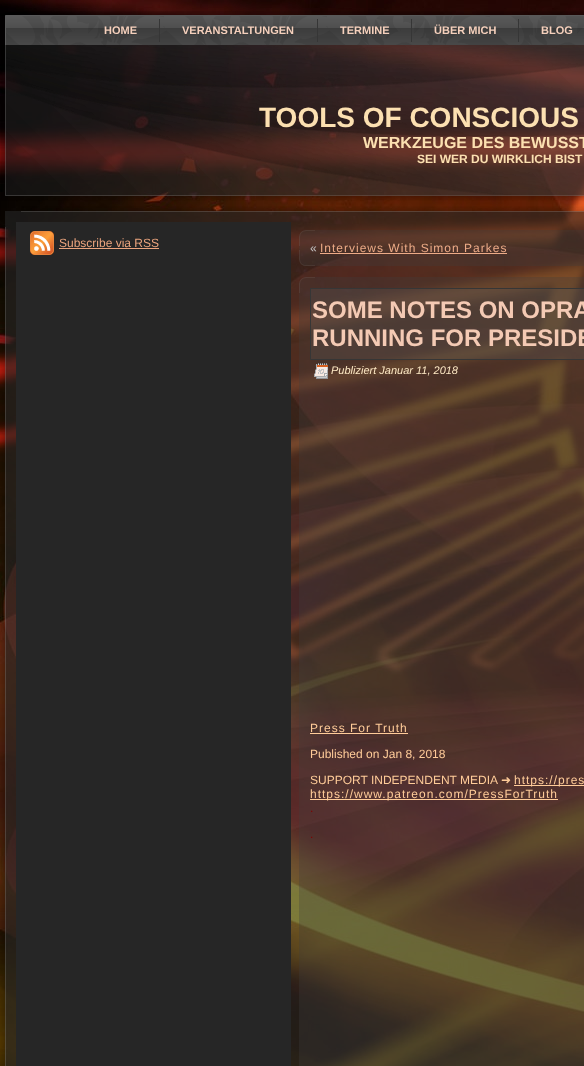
<svg xmlns="http://www.w3.org/2000/svg" width="584" height="1066" viewBox="0 0 584 1066">
  <rect width="100%" height="100%" fill="#fff"/>
  <image x="0" y="0" width="584" height="1066" href="img/1.png"/>
  <image x="5" y="11" width="579" height="34" href="img/2.png"/>
  <path d="M159 19h1v23H159z" fill="#363636"/>
  <path d="M317 19h1v23H317z" fill="#363636"/>
  <path d="M411 19h1v23H411z" fill="#363636"/>
  <path d="M518 19h1v23H518z" fill="#363636"/>
  <image x="1" y="45" width="583" height="156" href="img/3.png"/>
  <path d="M5 211h16v16H5z" fill="#26262699"/>
  <image x="21" y="206" width="563" height="21" href="img/4.png"/>
  <image x="0" y="227" width="16" height="839" href="img/5.png"/>
  <path d="M291 227h293v839H291z" fill="#26262699"/>
  <path d="M16 222h275v844H16z" fill="#262626"/>
  <image x="30" y="231" width="24" height="24" href="img/6.png"/>
  <path d="M59 248h100v1H59z" fill="#eca57e"/>
  <image x="299" y="230" width="16" height="16" href="img/7.png"/>
  <path d="M315 230h269v16H315z" fill="#4040404d"/>
  <path d="M299 246h16v4H299z" fill="#4040404d"/>
  <path d="M315 250h269v16H315z" fill="#4040404d"/>
  <path d="M320 253h187v1H320z" fill="#edab87"/>
  <path d="M315 246h269v4H315z" fill="#4040404d"/>
  <image x="299" y="250" width="16" height="16" href="img/8.png"/>
  <image x="299" y="277" width="16" height="16" href="img/9.png"/>
  <path d="M315 277h269v16H315z" fill="#4040404d"/>
  <path d="M299 293h16v773H299z" fill="#4040404d"/>
  <path d="M315 293h269v773H315z" fill="#4040404d"/>
  <path d="M310.5 288.5h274v71H310.5z" fill="#5b5b5b4d" stroke="#363636"/>
  <image x="314" y="363" width="14" height="16" href="img/10.png"/>
  <path d="M310 733h98v1H310z" fill="#fc9"/>
  <path d="M514 785h70v1H514z" fill="#fc9"/>
  <path d="M310 799h248v1H310z" fill="#fc9"/>
  <g font-family="Liberation Sans" font-size="11" font-weight="bold" fill="#f5d0bc">
    <text x="104" y="34">HOME</text>
    <text x="182" y="34">VERANSTALTUNGEN</text>
    <text x="340" y="34">TERMINE</text>
    <text x="434" y="34">ÜBER MICH</text>
    <text x="541" y="34">BLOG</text>
  </g>
  <text x="259" y="127" font-family="Liberation Sans" font-size="28" font-weight="bold" fill="#fce0b1">TOOLS OF CONSCIOUS</text>
  <text x="363" y="148" font-family="Liberation Sans" font-size="16" font-weight="bold" fill="#fce0b1">WERKZEUGE DES BEWUSST</text>
  <text x="417" y="163" font-family="Liberation Sans" font-size="12" font-weight="bold" fill="#fce0b1">SEI WER DU WIRKLICH BIST</text>
  <text x="59" y="247" font-family="Liberation Sans" font-size="12" fill="#eca57e">Subscribe via RSS</text>
  <text x="310" y="252" font-family="Liberation Sans" font-size="12" fill="#c4c4c4">«</text>
  <text x="320" y="252" font-family="Liberation Sans" font-size="12" letter-spacing="1" fill="#edab87">Interviews With Simon Parkes</text>
  <g font-family="Liberation Sans" font-size="24" font-weight="bold" fill="#f4cab4">
    <text x="312" y="318">SOME NOTES ON OPRA</text>
    <text x="312" y="346">RUNNING FOR PRESIDE</text>
  </g>
  <text x="331" y="374" font-family="Liberation Sans" font-size="11" font-style="italic" fill="#fde8c4">Publiziert Januar 11, 2018</text>
  <text x="310" y="732" font-family="Liberation Sans" font-size="12" letter-spacing="1" fill="#fc9">Press For Truth</text>
  <g font-family="Liberation Sans" font-size="12" fill="#fc9">
    <text x="310" y="758">Published on Jan 8, 2018</text>
    <text x="310" y="784">SUPPORT INDEPENDENT MEDIA</text>
  </g>
  <text x="501" y="784" font-family="DejaVu Sans" font-size="12" fill="#fc9">➜</text>
  <g font-family="Liberation Sans" font-size="12" letter-spacing="1" fill="#fc9">
    <text x="514" y="784">https://pres</text>
    <text x="310" y="798">https://www.patreon.com/PressForTruth</text>
  </g>
  <g font-family="Liberation Sans" font-size="12" fill="#800000">
    <text x="310" y="812">.</text>
    <text x="310" y="838">.</text>
  </g>
</svg>
